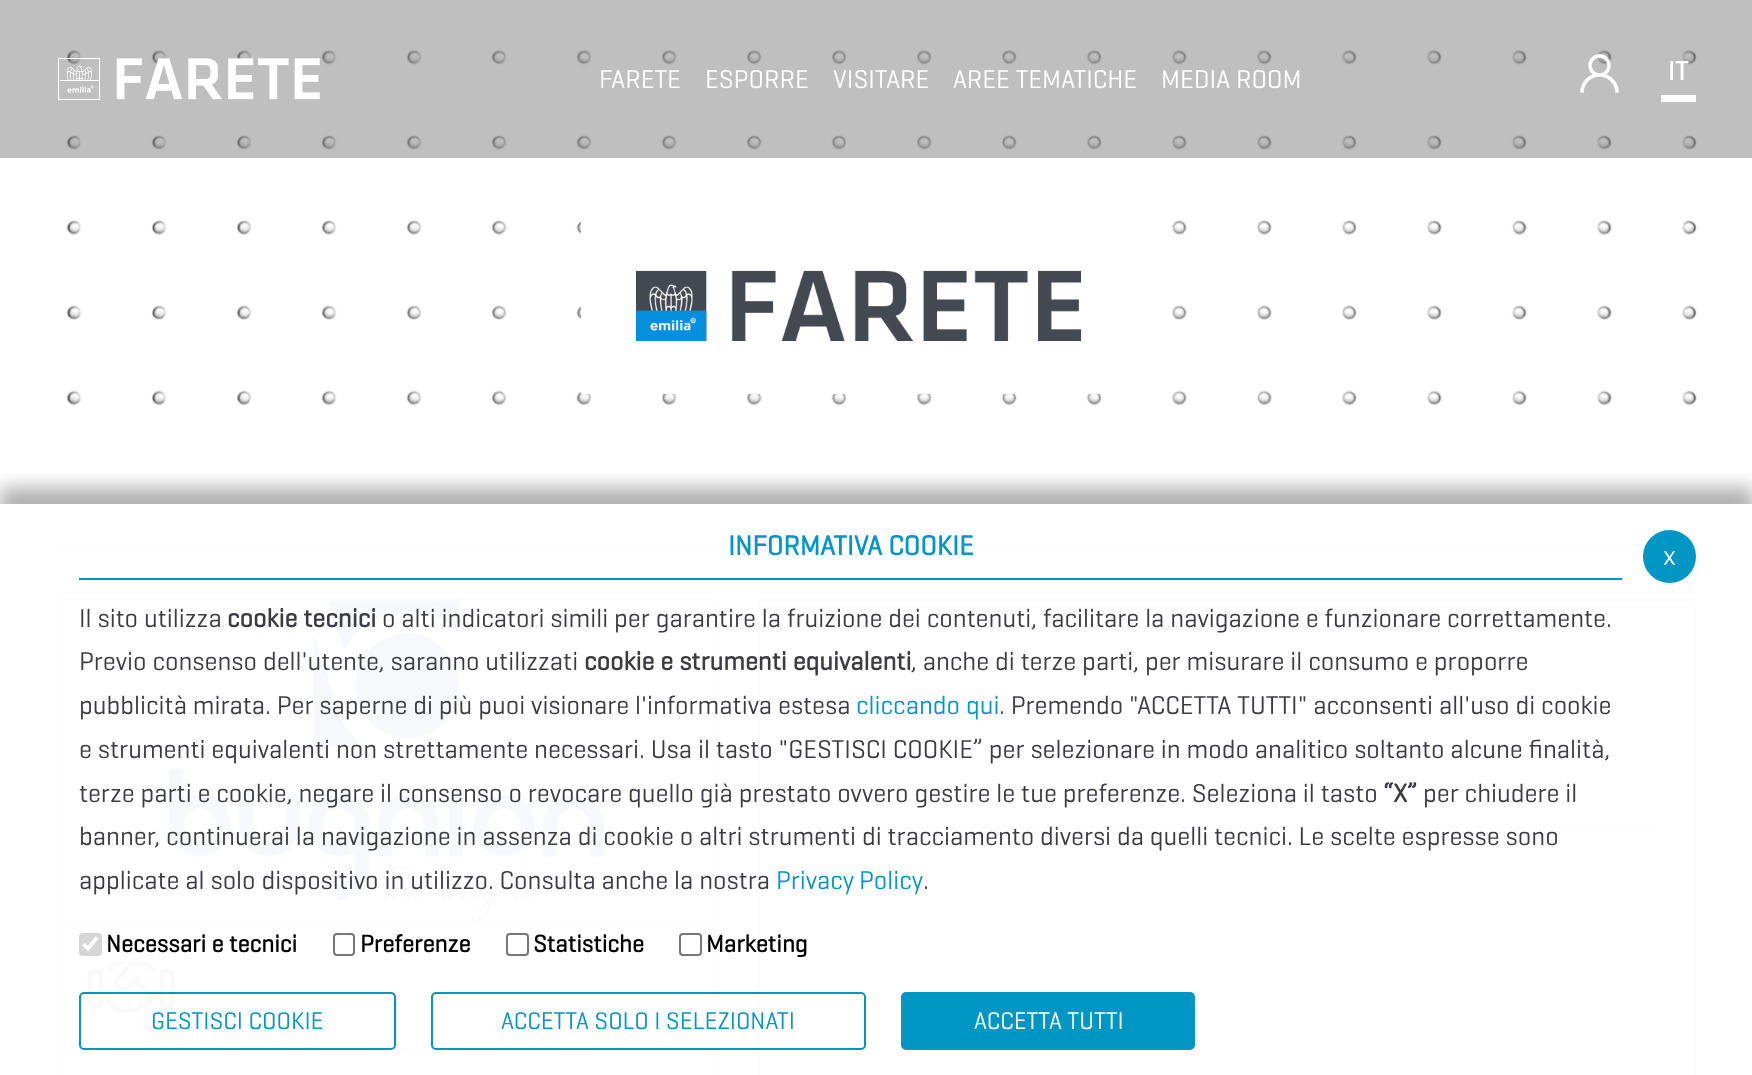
<svg xmlns="http://www.w3.org/2000/svg" width="1752" height="1075" viewBox="0 0 1752 1075">
  <defs>
    <clipPath id="clip1"><path d="M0 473h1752v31H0z"/></clipPath>
  </defs>
  <rect width="100%" height="100%" fill="#fff"/>
  <image x="66" y="50" width="1631" height="356" href="img/1.png"/>
  <path d="M581 220h521v174H581z" fill="#fff"/>
  <image x="636" y="270" width="446" height="71" href="img/2.png"/>
  <path d="M0 0h1752v158H0z" fill="#70707073"/>
  <image x="58" y="58" width="262" height="42" href="img/3.png"/>
  <image x="1580" y="54" width="39" height="39" href="img/4.png"/>
  <path d="M1661 95h35v7H1661z" fill="#fff"/>
  <path d="M58 544h1638v2H58z" fill="#999"/>
  <path d="M60 924h654v151H60z" fill="#f7f4f4"/>
  <path d="M58 599h658v1H58z" fill="#999"/>
  <path d="M716 598V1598L714 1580V600Z" fill="#999"/>
  <path d="M58 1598V598L60 600V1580Z" fill="#999"/>
  <path d="M60 922h654v2H60z" fill="#999"/>
  <image x="168" y="600" width="437" height="323" href="img/5.png"/>
  <path d="M60 1050h654v2H60z" fill="#999"/>
  <image x="87" y="960" width="88" height="54" href="img/6.png"/>
  <path d="M760 601h934v474H760z" fill="#f7f4f4"/>
  <path d="M758 599h938v2H758z" fill="#999"/>
  <path d="M1696 598V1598L1694 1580V600Z" fill="#999"/>
  <path d="M758 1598V598L760 600V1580Z" fill="#999"/>
  <path d="M802 826h850v2H802z" fill="#999"/>
  <g clip-path="url(#clip1)">
    <path d="M0 487h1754v572H0z" fill="#0000004d" filter="blur(9px)"/>
  </g>
  <path d="M58 544h1638v531H58z" fill="#fffffff7"/>
  <path d="M79 578h1543v2H79z" fill="#0096c3"/>
  <rect x="79" y="933" width="23" height="23" rx="4" fill="#d6d6d6"/>
  <path d="M83.5 944L88 948.5L97 937.5" fill="none" stroke="#fff" stroke-width="3.6"/>
  <rect x="334" y="934" width="20" height="21" rx="3" fill="none" stroke="#767676" stroke-width="2"/>
  <rect x="507" y="934" width="21" height="21" rx="3" fill="none" stroke="#767676" stroke-width="2"/>
  <rect x="680" y="934" width="21" height="21" rx="3" fill="none" stroke="#767676" stroke-width="2"/>
  <rect x="80" y="993" width="315" height="56" rx="4" fill="none" stroke="#0096c3" stroke-width="2"/>
  <rect x="432" y="993" width="433" height="56" rx="4" fill="none" stroke="#0096c3" stroke-width="2"/>
  <rect x="902" y="993" width="292" height="56" rx="4" fill="#0096c3" stroke="#0096c3" stroke-width="2"/>
  <circle cx="1669.5" cy="556.5" r="26.5" fill="#0096c3"/>
  <g font-family="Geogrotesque" font-size="26.25" fill="#fff">
    <text x="599" y="88">FARETE</text>
    <text x="705" y="88">ESPORRE</text>
    <text x="833" y="88">VISITARE</text>
    <text x="953" y="88">AREE TEMATICHE</text>
    <text x="1161" y="88">MEDIA ROOM</text>
  </g>
  <text x="1668" y="80" font-family="Geogrotesque" font-size="28" font-weight="500" fill="#fff">IT</text>
  <text x="728" y="555" font-family="Geogrotesque" font-size="28" font-weight="bold" fill="#0096c3">INFORMATIVA COOKIE</text>
  <text x="79" y="627" font-family="Geogrotesque" font-size="26.25" fill="#3c3b40">Il sito utilizza</text>
  <text x="227" y="627" font-family="Geogrotesque" font-size="26.25" font-weight="bold" fill="#3c3b40">cookie tecnici</text>
  <g font-family="Geogrotesque" font-size="26.25" fill="#3c3b40">
    <text x="382" y="627">o alti indicatori simili per garantire la fruizione dei contenuti, facilitare la navigazione e funzionare correttamente.</text>
    <text x="79" y="670">Previo consenso dell'utente, saranno utilizzati</text>
  </g>
  <text x="584" y="670" font-family="Geogrotesque" font-size="26.25" font-weight="bold" fill="#3c3b40">cookie e strumenti equivalenti</text>
  <g font-family="Geogrotesque" font-size="26.25" fill="#3c3b40">
    <text x="911" y="670">, anche di terze parti, per misurare il consumo e proporre</text>
    <text x="79" y="714">pubblicità mirata. Per saperne di più puoi visionare l'informativa estesa</text>
  </g>
  <text x="856" y="714" font-family="Geogrotesque" font-size="26.25" fill="#0096c3">cliccando qui</text>
  <g font-family="Geogrotesque" font-size="26.25" fill="#3c3b40">
    <text x="999" y="714">. Premendo "ACCETTA TUTTI" acconsenti all'uso di cookie</text>
    <text x="79" y="758">e strumenti equivalenti non strettamente necessari. Usa il tasto "GESTISCI COOKIE” per selezionare in modo analitico soltanto alcune finalità,</text>
    <text x="79" y="802">terze parti e cookie, negare il consenso o revocare quello già prestato ovvero gestire le tue preferenze. Seleziona il tasto</text>
  </g>
  <text x="1383" y="802" font-family="Geogrotesque" font-size="26.25" font-weight="bold" fill="#3c3b40">“X”</text>
  <g font-family="Geogrotesque" font-size="26.25" fill="#3c3b40">
    <text x="1423" y="802">per chiudere il</text>
    <text x="79" y="845">banner, continuerai la navigazione in assenza di cookie o altri strumenti di tracciamento diversi da quelli tecnici. Le scelte espresse sono</text>
    <text x="79" y="889">applicate al solo dispositivo in utilizzo. Consulta anche la nostra</text>
  </g>
  <text x="776" y="889" word-spacing="-1" font-family="Geogrotesque" font-size="26.25" fill="#0096c3">Privacy Policy</text>
  <text x="923" y="889" font-family="Geogrotesque" font-size="26.25" fill="#3c3b40">.</text>
  <g font-family="Geogrotesque" font-size="24.5" font-weight="bold" fill="#000">
    <text x="106" y="952">Necessari e tecnici</text>
    <text x="360" y="952">Preferenze</text>
    <text x="533" y="952">Statistiche</text>
    <text x="706" y="952">Marketing</text>
  </g>
  <g font-family="Geogrotesque" font-size="24.5" fill="#0096c3">
    <text x="151" y="1029">GESTISCI COOKIE</text>
    <text x="501" y="1029">ACCETTA SOLO I SELEZIONATI</text>
  </g>
  <text x="974" y="1029" font-family="Geogrotesque" font-size="24.5" fill="#fff">ACCETTA TUTTI</text>
  <text x="1663" y="565" font-family="Geogrotesque" font-size="28" fill="#fff">x</text>
</svg>
